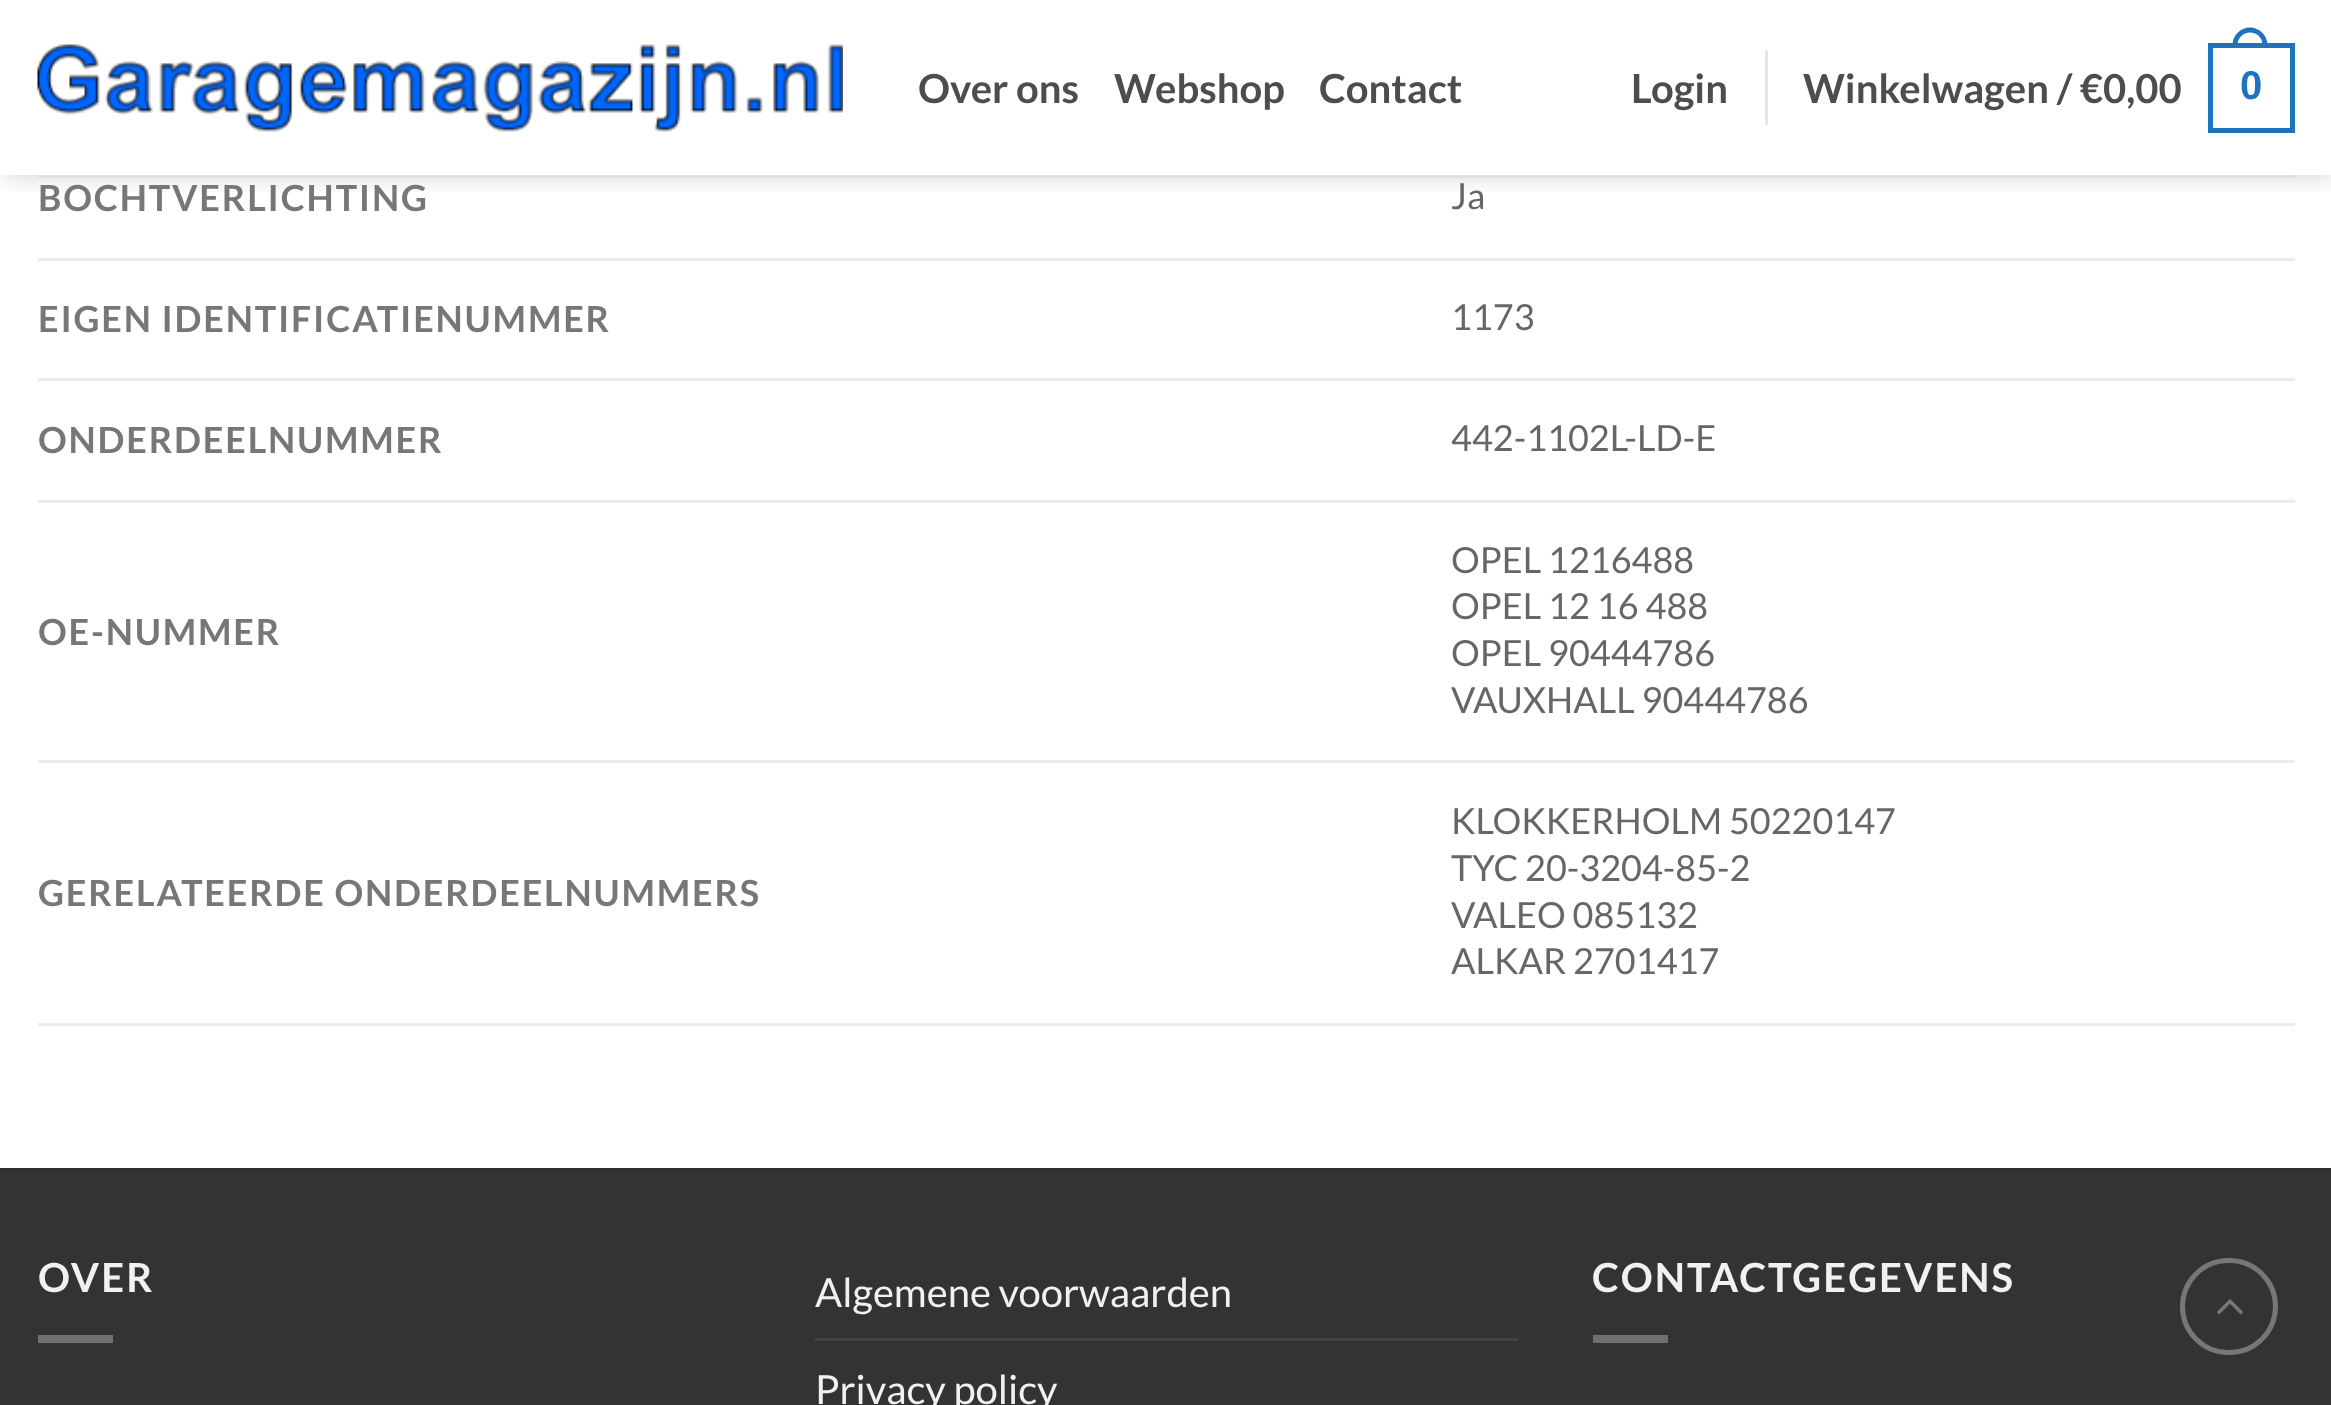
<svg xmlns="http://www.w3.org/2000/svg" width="2331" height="1405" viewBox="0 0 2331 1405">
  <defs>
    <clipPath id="clip1"><path d="M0 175h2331v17H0z"/></clipPath>
  </defs>
  <rect width="100%" height="100%" fill="#fff"/>
  <g clip-path="url(#clip1)">
    <path d="M3 3h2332v175H3z" fill="#00000026" filter="blur(12.5px)"/>
  </g>
  <image x="37" y="44" width="806" height="88" href="img/1.png"/>
  <path d="M1765 50h3v75H1765z" fill="#e6e6e6"/>
  <path d="M2210.5 45.5h82v85H2210.5z" fill="none" stroke="#1e73be" stroke-width="5"/>
  <path d="M2250 27.5C2259.5 27.5 2267.5 35.5 2267.5 45V47.5H2232.5V45C2232.5 35.5 2240.5 27.5 2250 27.5ZM2250 32.5C2257 32.5 2262.5 38 2262.5 45V47.5H2237.5V45C2237.5 38 2243 32.5 2250 32.5Z" fill="#1e73be" fill-rule="evenodd"/>
  <path d="M38 175h2257v3H38z" fill="#dfdfdf"/>
  <path d="M38 258h2257v3H38z" fill="#ececec"/>
  <path d="M38 378h2257v3H38z" fill="#ececec"/>
  <path d="M38 500h2257v3H38z" fill="#ececec"/>
  <path d="M38 760h2257v3H38z" fill="#ececec"/>
  <path d="M38 1023h2257v3H38z" fill="#ececec"/>
  <path d="M0 1171h2331v234H0z" fill="#333"/>
  <path d="M0 1168h2331v3H0z" fill="#303030"/>
  <path d="M38 1335h75v8H38z" fill="#707070"/>
  <path d="M815 1338h703v3H815z" fill="#434343"/>
  <path d="M1593 1335h75v8H1593z" fill="#707070"/>
  <rect x="2182.5" y="1260.5" width="93" height="92" rx="46" fill="none" stroke="#777" stroke-width="5"/>
  <image x="2217" y="1299" width="26" height="16" href="img/2.png"/>
  <g font-family="Lato" font-size="40" font-weight="bold" fill="#4d4d4d">
    <text x="918" y="103">Over ons</text>
    <text x="1114" y="103">Webshop</text>
    <text x="1319" y="103">Contact</text>
    <text x="1631" y="103">Login</text>
    <text x="1803" y="103">Winkelwagen / €0,00</text>
  </g>
  <text x="2240" y="99" font-family="Liberation Sans" font-size="40" font-weight="bold" fill="#1e73be">0</text>
  <text x="38" y="211" font-family="Lato" font-size="36" font-weight="bold" letter-spacing="1.8" fill="#777">BOCHTVERLICHTING</text>
  <text x="1451" y="209" font-family="Lato" font-size="36" fill="#666">Ja</text>
  <text x="38" y="332" font-family="Lato" font-size="36" font-weight="bold" letter-spacing="1.8" fill="#777">EIGEN IDENTIFICATIENUMMER</text>
  <text x="1451" y="330" font-family="Lato" font-size="36" fill="#666">1173</text>
  <text x="38" y="453" font-family="Lato" font-size="36" font-weight="bold" letter-spacing="1.8" fill="#777">ONDERDEELNUMMER</text>
  <text x="1451" y="451" font-family="Lato" font-size="36" fill="#666">442-1102L-LD-E</text>
  <text x="38" y="645" font-family="Lato" font-size="36" font-weight="bold" letter-spacing="1.8" fill="#777">OE-NUMMER</text>
  <g font-family="Lato" font-size="36" fill="#666">
    <text x="1451" y="573">OPEL 1216488</text>
    <text x="1451" y="619">OPEL 12 16 488</text>
    <text x="1451" y="666">OPEL 90444786</text>
    <text x="1451" y="713">VAUXHALL 90444786</text>
  </g>
  <text x="38" y="906" font-family="Lato" font-size="36" font-weight="bold" letter-spacing="1.8" fill="#777">GERELATEERDE ONDERDEELNUMMERS</text>
  <g font-family="Lato" font-size="36" fill="#666">
    <text x="1451" y="834">KLOKKERHOLM 50220147</text>
    <text x="1451" y="881">TYC 20-3204-85-2</text>
    <text x="1451" y="928">VALEO 085132</text>
    <text x="1451" y="974">ALKAR 2701417</text>
  </g>
  <text x="38" y="1292" font-family="Lato" font-size="40" font-weight="bold" letter-spacing="2" fill="#f1f1f1">OVER</text>
  <g font-family="Lato" font-size="40" fill="#f1f1f1">
    <text x="815" y="1307">Algemene voorwaarden</text>
    <text x="815" y="1404">Privacy policy</text>
  </g>
  <text x="1592" y="1292" font-family="Lato" font-size="40" font-weight="bold" letter-spacing="2" fill="#f1f1f1">CONTACTGEGEVENS</text>
</svg>
